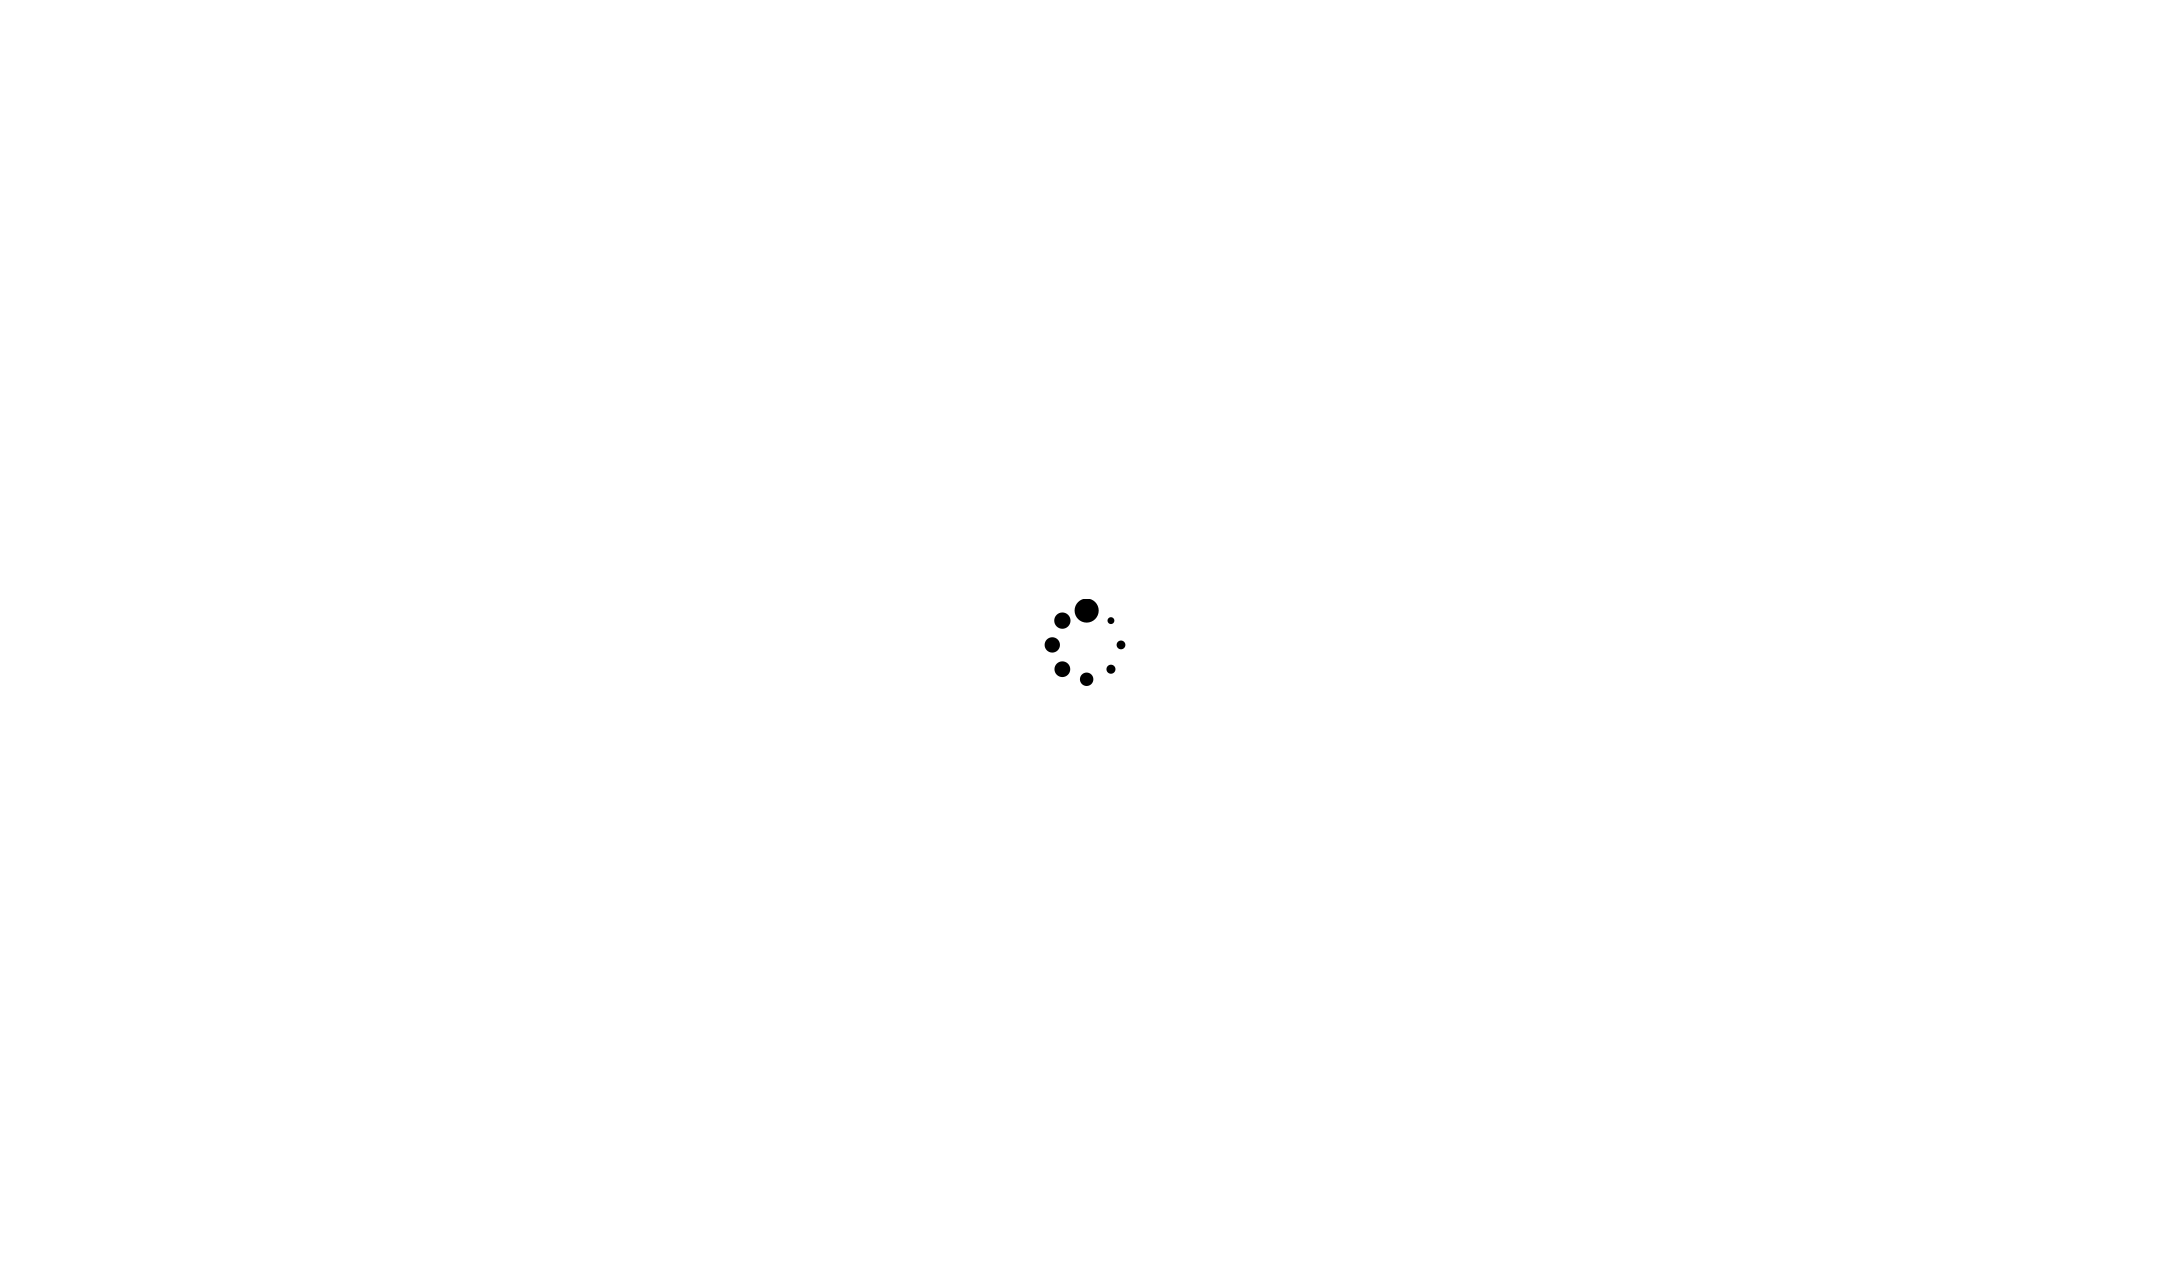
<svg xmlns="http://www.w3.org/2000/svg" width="2169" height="1284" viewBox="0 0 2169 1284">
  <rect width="100%" height="100%" fill="#fff"/>
  <image x="1044" y="599" width="82" height="87" href="img/1.png"/>
</svg>
